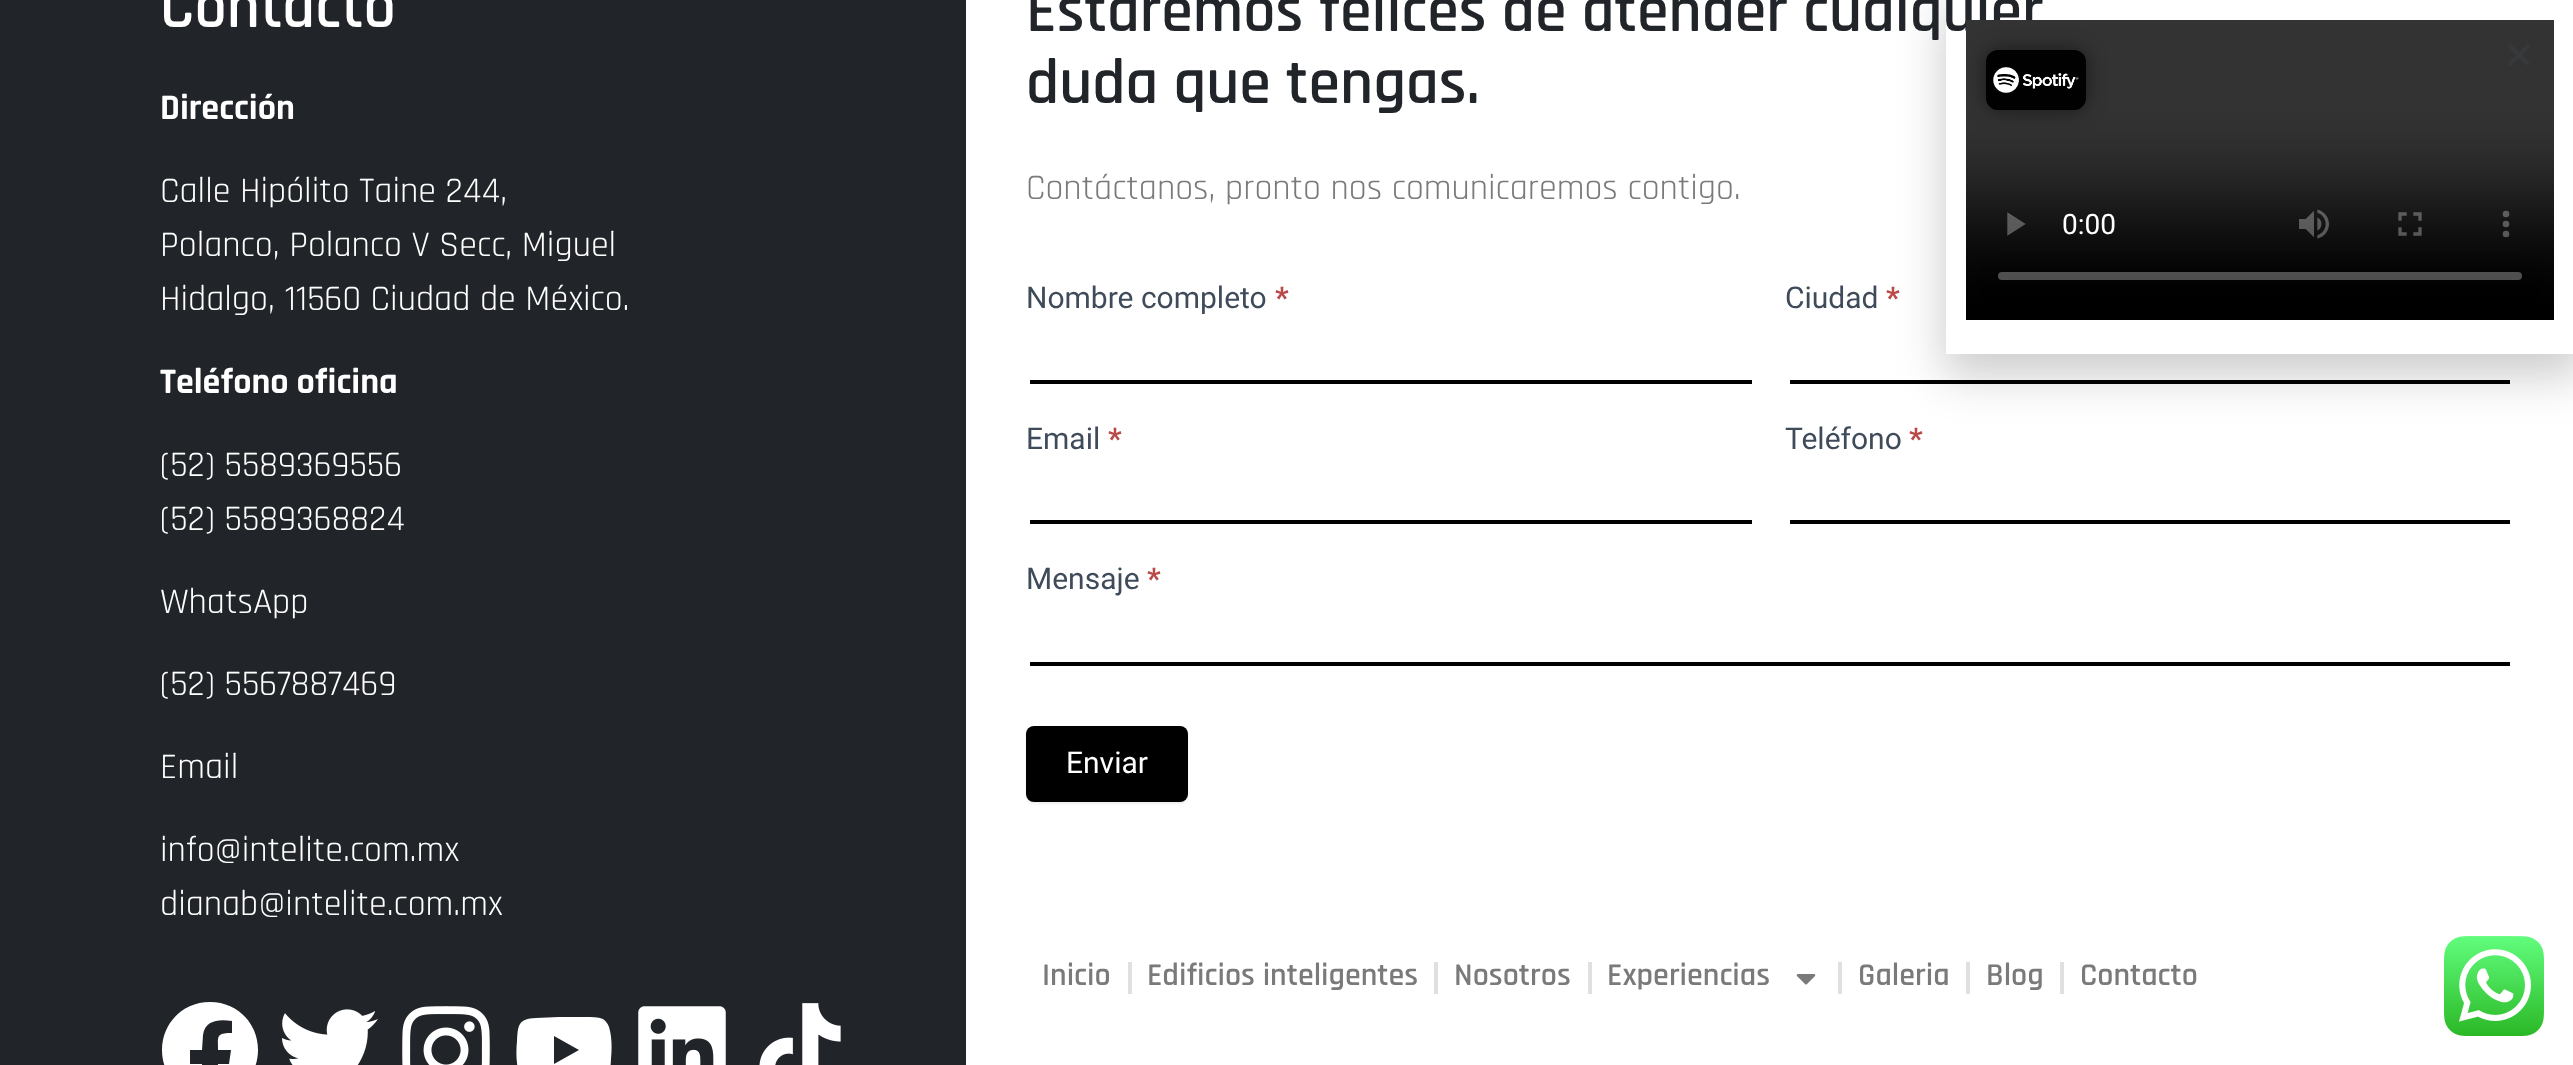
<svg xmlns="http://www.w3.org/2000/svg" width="2573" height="1065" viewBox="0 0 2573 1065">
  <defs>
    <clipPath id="clip1"><path d="M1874 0H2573V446H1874ZM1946 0H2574V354H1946Z" clip-rule="evenodd"/></clipPath>
  </defs>
  <rect width="100%" height="100%" fill="#212529"/>
  <path d="M258 1050C258 1023 237 1002 210 1002C183 1002 162 1023 162 1050C162 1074 179 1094 202 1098V1064H190V1050H202L203 1035C205 1020 219 1019 232 1021V1033C216 1033 218 1036 218 1050H231L229 1064H218V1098C241 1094 258 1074 258 1050Z" fill="#fff"/>
  <image x="282" y="1009" width="96" height="56" href="img/1.png"/>
  <image x="402" y="1006" width="88" height="59" href="img/2.png"/>
  <path d="M609 1027C608 1024 606 1021 603 1019C598 1017 591 1017 586 1017H559L536 1018C518 1019 518 1025 517 1041C516 1052 516 1063 519 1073C519 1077 522 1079 525 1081C530 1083 537 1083 542 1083H565L592 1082C610 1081 610 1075 611 1059C612 1048 612 1037 609 1027ZM554 1064V1036L579 1050Z" fill="#fff"/>
  <image x="638" y="1006" width="88" height="59" href="img/3.png"/>
  <image x="759" y="1003" width="82" height="62" href="img/4.png"/>
  <path d="M966 0h1607v1065H966z" fill="#fff"/>
  <path d="M1030 380h722v4H1030z" fill="#000"/>
  <path d="M1790 380h720v4H1790z" fill="#000"/>
  <path d="M1030 520h722v4H1030z" fill="#000"/>
  <path d="M1790 520h720v4H1790z" fill="#000"/>
  <path d="M1030 662h1480v4H1030z" fill="#000"/>
  <rect x="1026" y="728" width="162" height="76" rx="8" fill="#eee" filter="blur(1px)"/>
  <rect x="1026" y="726" width="162" height="76" rx="8" fill="#000"/>
  <path d="M1128 962h4v32H1128z" fill="#e0e0e0"/>
  <path d="M1434 962h4v32H1434z" fill="#e0e0e0"/>
  <path d="M1588 962h4v32H1588z" fill="#e0e0e0"/>
  <image x="1796" y="974" width="20" height="11" href="img/5.png"/>
  <path d="M1838 962h4v32H1838z" fill="#e0e0e0"/>
  <path d="M1966 962h4v32H1966z" fill="#e0e0e0"/>
  <path d="M2060 962h4v32H2060z" fill="#e0e0e0"/>
  <g clip-path="url(#clip1)">
    <path d="M1944 10h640v366H1944z" fill="#00000033" filter="blur(23px)"/>
  </g>
  <image x="2444" y="936" width="100" height="100" href="img/9.png"/>
  <text x="160" y="27" font-family="Rajdhani" font-size="64" font-weight="600" fill="#fff">Contacto</text>
  <text x="160" y="119" font-family="Rajdhani" font-size="36" font-weight="bold" fill="#fff">Dirección</text>
  <g font-family="Rajdhani" font-size="36" fill="#fff">
    <text x="160" y="202">Calle Hipólito Taine 244,</text>
    <text x="160" y="256">Polanco, Polanco V Secc, Miguel</text>
    <text x="160" y="310">Hidalgo, 11560 Ciudad de México.</text>
  </g>
  <text x="160" y="393" font-family="Rajdhani" font-size="36" font-weight="bold" fill="#fff">Teléfono oficina</text>
  <g font-family="Rajdhani" font-size="36" fill="#fff">
    <text x="160" y="476">(52) 5589369556</text>
    <text x="160" y="530">(52) 5589368824</text>
    <text x="160" y="613">WhatsApp</text>
    <text x="160" y="695">(52) 5567887469</text>
    <text x="160" y="778">Email</text>
    <text x="160" y="861">info@intelite.com.mx</text>
    <text x="160" y="915">dianab@intelite.com.mx</text>
  </g>
  <g font-family="Rajdhani" font-size="64" font-weight="600" fill="#212529">
    <text x="1026" y="31">Estaremos felices de atender cualquier</text>
    <text x="1026" y="103">duda que tengas.</text>
  </g>
  <text x="1026" y="199" font-family="Rajdhani" font-size="36" fill="#7a7a7a">Contáctanos, pronto nos comunicaremos contigo.</text>
  <text x="1026" y="308" font-family="Roboto" font-size="30" fill="#3f4b5b">Nombre completo</text>
  <text x="1275" y="308" font-family="Roboto" font-size="30" font-weight="bold" fill="#b94a48">*</text>
  <text x="1785" y="308" font-family="Roboto" font-size="30" fill="#3f4b5b">Ciudad</text>
  <text x="1886" y="308" font-family="Roboto" font-size="30" font-weight="bold" fill="#b94a48">*</text>
  <text x="1026" y="449" font-family="Roboto" font-size="30" fill="#3f4b5b">Email</text>
  <text x="1108" y="449" font-family="Roboto" font-size="30" font-weight="bold" fill="#b94a48">*</text>
  <text x="1785" y="449" font-family="Roboto" font-size="30" fill="#3f4b5b">Teléfono</text>
  <text x="1909" y="449" font-family="Roboto" font-size="30" font-weight="bold" fill="#b94a48">*</text>
  <text x="1026" y="589" font-family="Roboto" font-size="30" fill="#3f4b5b">Mensaje</text>
  <text x="1147" y="589" font-family="Roboto" font-size="30" font-weight="bold" fill="#b94a48">*</text>
  <text x="1066" y="773" font-family="Roboto" font-size="30" fill="#fff">Enviar</text>
  <g font-family="Rajdhani" font-size="32" font-weight="600" fill="#7a7a7a">
    <text x="1042" y="985">Inicio</text>
    <text x="1147" y="985">Edificios inteligentes</text>
    <text x="1454" y="985">Nosotros</text>
    <text x="1607" y="985">Experiencias</text>
    <text x="1858" y="985">Galeria</text>
    <text x="1986" y="985">Blog</text>
    <text x="2080" y="985">Contacto</text>
  </g>
  <image x="1966" y="20" width="588" height="300" href="img/7.png"/>
  <rect x="1986" y="50" width="100" height="60" rx="12" fill="#00000080" filter="blur(10px)"/>
  <image x="1986" y="50" width="100" height="60" href="img/6.png"/>
  <image x="2508" y="44" width="22" height="22" href="img/8.png"/>
</svg>
